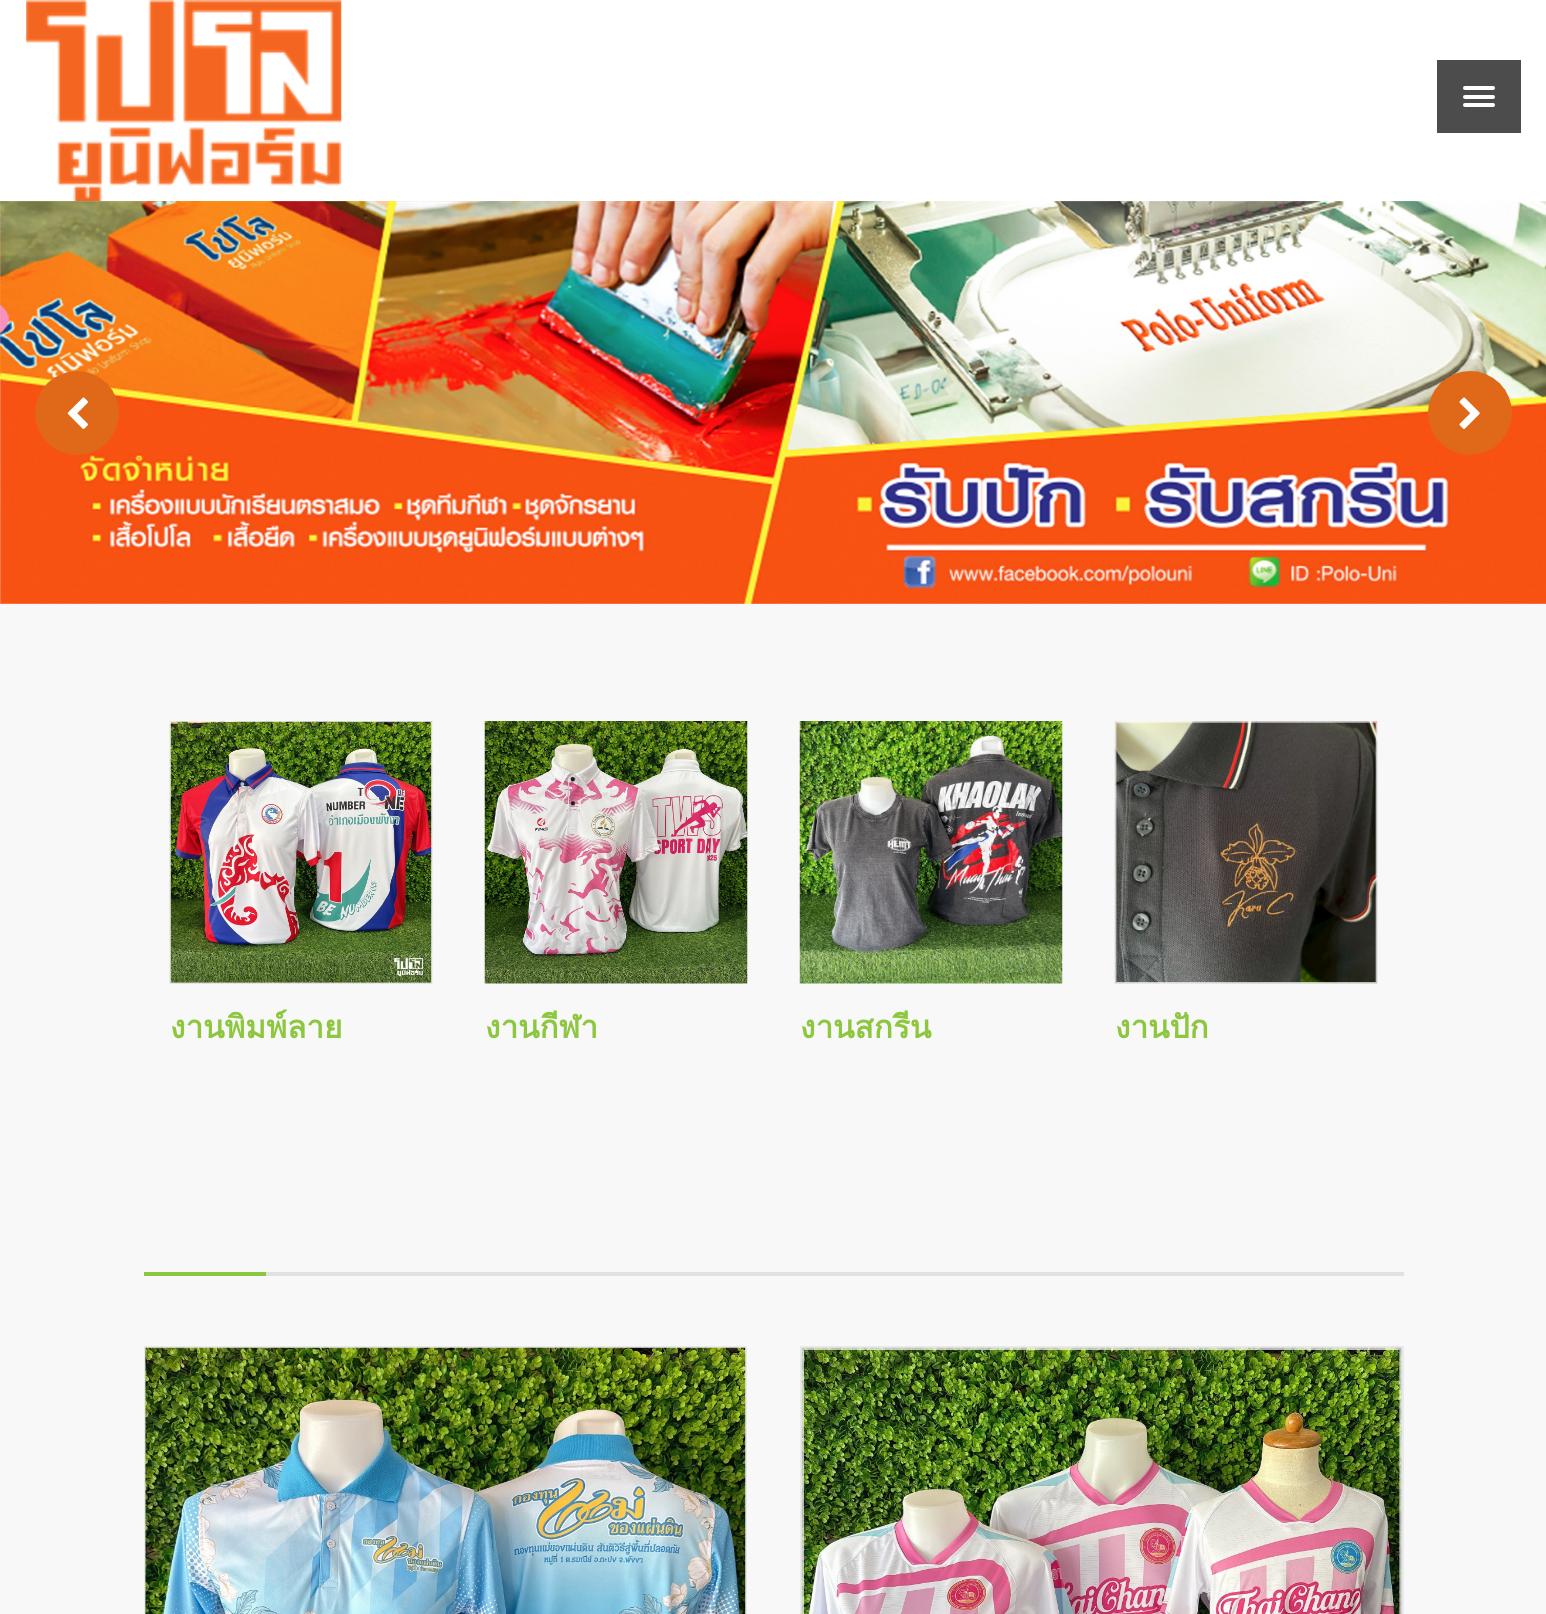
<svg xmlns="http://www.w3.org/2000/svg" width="1546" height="1614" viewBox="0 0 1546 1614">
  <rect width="100%" height="100%" fill="#f8f8f8"/>
  <path d="M0 0h1546v201H0z" fill="#fff"/>
  <image x="26" y="0" width="316" height="201" href="img/1.png"/>
  <path d="M1437 60h84v73H1437z" fill="#4c4c4c"/>
  <rect x="1463" y="86" width="32" height="4" rx="2" fill="#fff"/>
  <rect x="1463" y="95" width="32" height="4" rx="2" fill="#fff"/>
  <rect x="1463" y="103" width="32" height="4" rx="2" fill="#fff"/>
  <image x="0" y="201" width="1546" height="403" href="img/2.png"/>
  <circle cx="77" cy="413" r="42" fill="#e06919"/>
  <image x="67" y="397" width="21" height="32" href="img/3.png"/>
  <circle cx="1470" cy="413" r="42" fill="#e06919"/>
  <image x="1459" y="397" width="21" height="32" href="img/4.png"/>
  <image x="169" y="721" width="264" height="263" href="img/5.png"/>
  <image x="484" y="721" width="264" height="263" href="img/6.png"/>
  <image x="799" y="721" width="264" height="263" href="img/7.png"/>
  <image x="1114" y="721" width="264" height="263" href="img/8.png"/>
  <path d="M266 1272h1138v4H266z" fill="#e1e1e1"/>
  <path d="M144 1272h122v4H144z" fill="#8dc63f"/>
  <path d="M145 1347h601v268H145z" fill="none" stroke="#e9e9e9" stroke-width="2"/>
  <image x="145" y="1347" width="601" height="267" href="img/9.png"/>
  <path d="M801 1347h602v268H801z" fill="none" stroke="#e9e9e9" stroke-width="2"/>
  <image x="801" y="1347" width="601" height="267" href="img/10.png"/>
  <g font-family="Loma" font-size="31.5" font-weight="bold" fill="#8dc63f">
    <text x="170" y="1038">งานพิมพ์ลาย</text>
    <text x="485" y="1038">งานกีฬา</text>
    <text x="800" y="1038">งานสกรีน</text>
    <text x="1115" y="1038">งานปัก</text>
  </g>
</svg>
